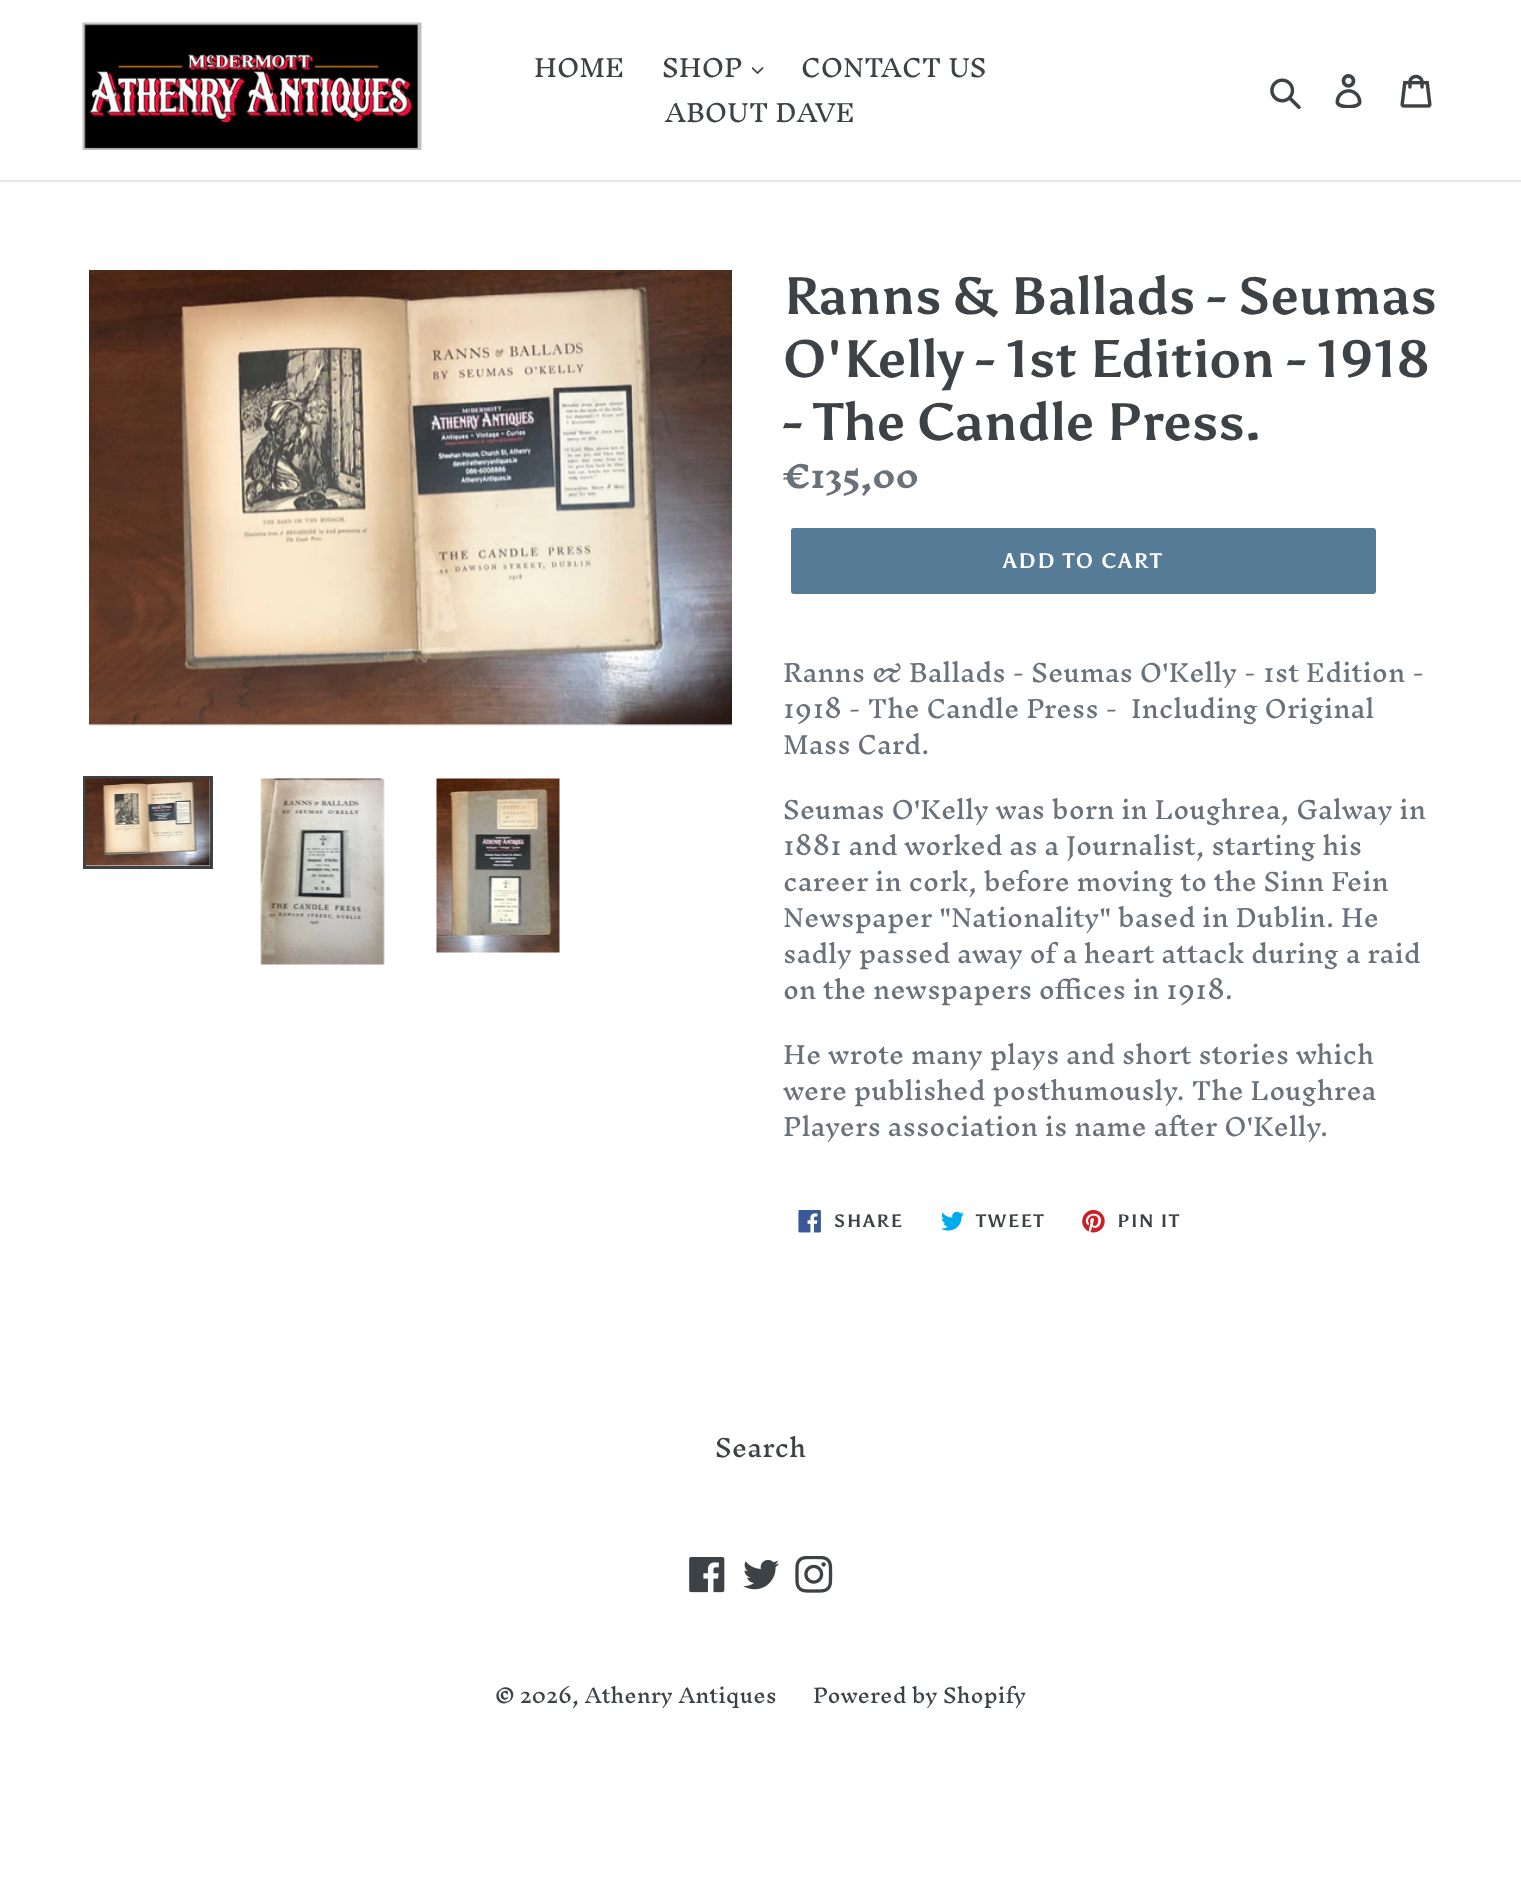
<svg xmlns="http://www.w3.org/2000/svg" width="1521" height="1895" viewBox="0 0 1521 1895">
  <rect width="100%" height="100%" fill="#fff"/>
  <path d="M0 180h1521v2H0z" fill="#e8e9eb"/>
  <image x="82" y="22" width="340" height="128" href="img/1.png"/>
  <image x="752" y="67" width="12" height="7" href="img/2.png"/>
  <image x="1270" y="78" width="31" height="31" href="img/3.png"/>
  <image x="1335" y="74" width="27" height="34" href="img/4.png"/>
  <image x="1400" y="74" width="32" height="34" href="img/5.png"/>
  <image x="89" y="270" width="643" height="456" href="img/6.png"/>
  <path d="M84.5 777.5h127v90H84.5z" fill="none" stroke="#3d4246" stroke-width="3"/>
  <image x="85" y="778" width="126" height="88" href="img/7.png"/>
  <image x="260" y="778" width="125" height="187" href="img/8.png"/>
  <image x="436" y="778" width="124" height="175" href="img/9.png"/>
  <rect x="791" y="528" width="585" height="66" rx="3" fill="#557b97"/>
  <image x="798" y="1210" width="23" height="23" href="img/10.png"/>
  <image x="941" y="1211" width="23" height="20" href="img/11.png"/>
  <image x="1082" y="1210" width="23" height="23" href="img/12.png"/>
  <image x="689" y="1557" width="36" height="36" href="img/13.png"/>
  <image x="743" y="1559" width="36" height="31" href="img/14.png"/>
  <image x="795" y="1556" width="38" height="37" href="img/15.png"/>
  <g font-family="Inknut Antiqua" font-size="24" fill="#3d4246">
    <text x="534" y="77">HOME</text>
    <text x="662" y="77">SHOP</text>
    <text x="801" y="77">CONTACT US</text>
    <text x="665" y="122">ABOUT DAVE</text>
  </g>
  <g font-family="Asul" font-size="52.5" font-weight="bold" fill="#3d4246">
    <text x="783" y="314">Ranns &amp; Ballads - Seumas</text>
    <text x="783" y="377">O'Kelly - 1st Edition - 1918</text>
    <text x="783" y="440">- The Candle Press.</text>
  </g>
  <text x="783" y="488" font-family="Inknut Antiqua" font-size="30" font-weight="bold" fill="#69727b">€135,00</text>
  <text x="1003" y="568" font-family="Asul" font-size="21" font-weight="bold" letter-spacing="1.75" fill="#fff">ADD TO CART</text>
  <g font-family="Inknut Antiqua" font-size="24" fill="#69727b">
    <text x="783" y="682">Ranns &amp; Ballads - Seumas O'Kelly - 1st Edition -</text>
    <text x="783" y="718" xml:space="preserve">1918 - The Candle Press -  Including Original</text>
    <text x="783" y="754">Mass Card.</text>
    <text x="783" y="819">Seumas O'Kelly was born in Loughrea, Galway in</text>
    <text x="783" y="855">1881 and worked as a Journalist, starting his</text>
    <text x="783" y="891">career in cork, before moving to the Sinn Fein</text>
    <text x="783" y="927">Newspaper "Nationality" based in Dublin. He</text>
    <text x="783" y="963">sadly passed away of a heart attack during a raid</text>
    <text x="783" y="999">on the newspapers offices in 1918.</text>
    <text x="783" y="1064">He wrote many plays and short stories which</text>
    <text x="783" y="1100">were published posthumously. The Loughrea</text>
    <text x="783" y="1136">Players association is name after O'Kelly.</text>
  </g>
  <g font-family="Asul" font-size="18" font-weight="bold" letter-spacing="1.5" fill="#3d4246">
    <text x="834" y="1227">SHARE</text>
    <text x="976" y="1227">TWEET</text>
    <text x="1117" y="1227">PIN IT</text>
  </g>
  <text x="715" y="1457" font-family="Inknut Antiqua" font-size="24" fill="#3d4246">Search</text>
  <g font-family="Inknut Antiqua" font-size="19.5" fill="#3d4246">
    <text x="495" y="1703">© 2026, Athenry Antiques</text>
    <text x="813" y="1703">Powered by Shopify</text>
  </g>
</svg>
